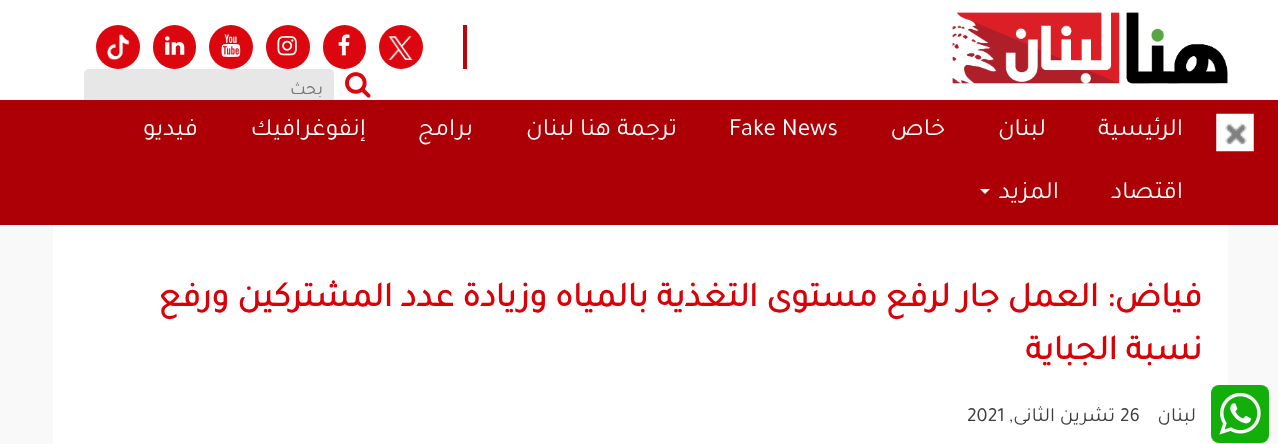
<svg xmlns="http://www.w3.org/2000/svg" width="1278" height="444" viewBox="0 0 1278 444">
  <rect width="100%" height="100%" fill="#fff"/>
  <image x="952" y="12" width="276" height="72" href="img/1.png"/>
  <path d="M463 25h4v44H463z" fill="#bb0309"/>
  <circle cx="401" cy="47" r="22" fill="#db060e"/>
  <image x="388" y="36" width="25" height="24" href="img/2.png"/>
  <rect x="323" y="25" width="43" height="44" rx="21.5" fill="#db060e"/>
  <image x="338" y="34" width="12" height="22" href="img/3.png"/>
  <circle cx="288" cy="47" r="22" fill="#db060e"/>
  <image x="277" y="36" width="20" height="20" href="img/4.png"/>
  <circle cx="231" cy="47" r="22" fill="#db060e"/>
  <image x="221" y="34" width="20" height="23" href="img/5.png"/>
  <rect x="153" y="25" width="43" height="44" rx="21.5" fill="#db060e"/>
  <image x="165" y="36" width="20" height="19" href="img/6.png"/>
  <circle cx="118" cy="47" r="22" fill="#db060e"/>
  <image x="107" y="34" width="23" height="26" href="img/7.png"/>
  <image x="345" y="72" width="26" height="26" href="img/8.png"/>
  <path d="M89 69H329C332 69 334 71 334 74V100H84V74C84 71 86 69 89 69Z" fill="#e7e7e7"/>
  <path d="M0 100h1278v125H0z" fill="#ac0006"/>
  <image x="1216" y="113" width="38" height="39" href="img/9.png"/>
  <path d="M980 189H990L985 194Z" fill="#fff"/>
  <path d="M0 225h1278v219H0z" fill="#f9f9f9"/>
  <path d="M53 225h1175v219H53z" fill="#fff"/>
  <rect x="1211" y="385" width="58" height="58" rx="8" fill="#12af0a"/>
  <image x="1219" y="392" width="42" height="43" href="img/10.png"/>
  <text x="323" y="94" font-family="Tajawal" font-size="18" direction="rtl" fill="#757575">بحث</text>
  <g font-family="Tajawal" font-size="25" direction="rtl" fill="#fff">
    <text x="1183" y="135">الرئيسية</text>
    <text x="1046" y="135">لبنان</text>
    <text x="945" y="135">خاص</text>
  </g>
  <text x="729" y="135" font-family="Tajawal" font-size="25" fill="#fff">Fake News</text>
  <g font-family="Tajawal" font-size="25" direction="rtl" fill="#fff">
    <text x="677" y="135">ترجمة هنا لبنان</text>
    <text x="473" y="135">برامج</text>
    <text x="366" y="135">إنفوغرافيك</text>
    <text x="198" y="135">فيديو</text>
    <text x="1183" y="198">اقتصاد</text>
    <text x="1059" y="198">المزيد</text>
  </g>
  <g font-family="Tajawal" font-size="35" font-weight="bold" direction="rtl" fill="#da0008">
    <text x="1202" y="306">فياض: العمل جار لرفع مستوى التغذية بالمياه وزيادة عدد المشتركين ورفع</text>
    <text x="1202" y="359">نسبة الجباية</text>
  </g>
  <text x="1196" y="421" font-family="Tajawal" font-size="20" direction="rtl" fill="#3e3e3e">لبنان</text>
  <text x="1120" y="421" font-family="Tajawal" font-size="20" fill="#3e3e3e">26</text>
  <text x="1115" y="421" font-family="Tajawal" font-size="20" direction="rtl" fill="#3e3e3e">تشرين الثانى,</text>
  <text x="967" y="421" font-family="Tajawal" font-size="20" fill="#3e3e3e">2021</text>
</svg>
